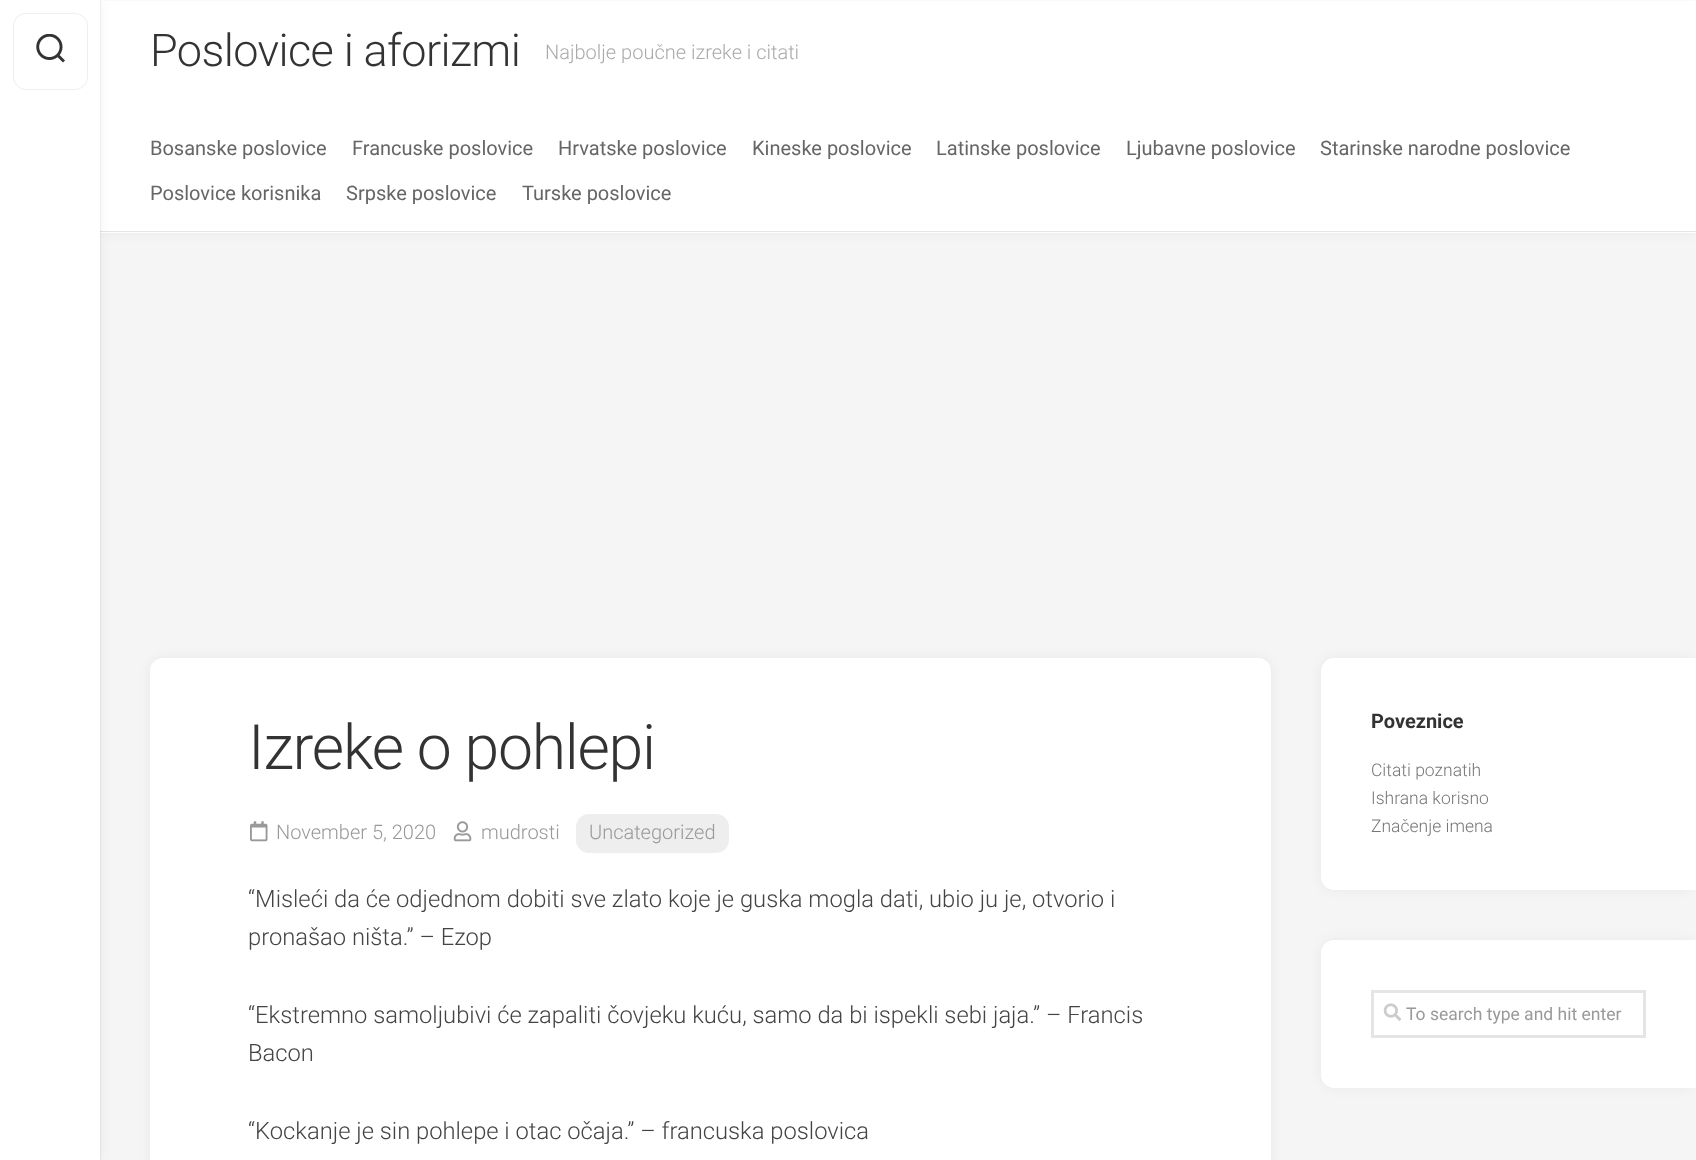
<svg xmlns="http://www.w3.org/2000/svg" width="1696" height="1160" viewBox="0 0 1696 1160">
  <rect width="100%" height="100%" fill="#f5f5f5"/>
  <path d="M100 0h1596v1H100z" fill="#fff"/>
  <path d="M100 1h1596v232H100z" fill="#0000000d" filter="blur(6px)"/>
  <path d="M100 1h1596v232H100z" fill="#fff"/>
  <path d="M100 231h1596v1H100z" fill="#e5e5e5"/>
  <path d="M100 0h1v1160H100z" fill="#0000000d"/>
  <path d="M0 0h100v1160H0z" fill="#0000000d" filter="blur(6px)"/>
  <path d="M0 0h100v1160H0z" fill="#fff"/>
  <rect x="13.5" y="13.5" width="74" height="76" rx="12.5" fill="none" stroke="#eee"/>
  <image x="36" y="34" width="29" height="29" href="img/1.png"/>
  <rect x="150" y="658" width="1121" height="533" rx="13" fill="#0000000d" filter="blur(6px)"/>
  <rect x="150" y="658" width="1121" height="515" rx="13" fill="#fff"/>
  <image x="250" y="821" width="18" height="21" href="img/2.png"/>
  <image x="453" y="821" width="19" height="21" href="img/3.png"/>
  <rect x="576" y="814" width="153" height="39" rx="13" fill="#eee"/>
  <rect x="1321" y="658" width="375" height="232" rx="13" fill="#0000000d" filter="blur(6px)"/>
  <path d="M1334 658H1696V890H1334C1327 890 1321 884 1321 877V671C1321 664 1327 658 1334 658Z" fill="#fff"/>
  <rect x="1321" y="940" width="375" height="148" rx="13" fill="#0000000d" filter="blur(6px)"/>
  <path d="M1334 940H1696V1088H1334C1327 1088 1321 1082 1321 1075V953C1321 946 1327 940 1334 940Z" fill="#fff"/>
  <path d="M1372.5 991.5h272v45H1372.5z" fill="none" stroke="#e5e5e5" stroke-width="3"/>
  <image x="1383" y="1003" width="19" height="18" href="img/4.png"/>
  <text x="150" y="66" font-family="Roboto" font-size="45" font-weight="300" letter-spacing="-0.6" fill="#333">Poslovice i aforizmi</text>
  <text x="545" y="59" font-family="Roboto" font-size="20" font-weight="300" fill="#aaa">Najbolje poučne izreke i citati</text>
  <g font-family="Roboto" font-size="20" fill="#666">
    <text x="150" y="155">Bosanske poslovice</text>
    <text x="352" y="155">Francuske poslovice</text>
    <text x="558" y="155">Hrvatske poslovice</text>
    <text x="752" y="155">Kineske poslovice</text>
    <text x="936" y="155">Latinske poslovice</text>
    <text x="1126" y="155">Ljubavne poslovice</text>
    <text x="1320" y="155">Starinske narodne poslovice</text>
    <text x="150" y="200">Poslovice korisnika</text>
    <text x="346" y="200">Srpske poslovice</text>
    <text x="522" y="200">Turske poslovice</text>
  </g>
  <text x="248" y="769" font-family="Roboto" font-size="62.5" font-weight="300" letter-spacing="-1.25" fill="#333">Izreke o pohlepi</text>
  <g font-family="Roboto" font-size="20" font-weight="300" fill="#999">
    <text x="276" y="839">November 5, 2020</text>
    <text x="481" y="839">mudrosti</text>
    <text x="589" y="839">Uncategorized</text>
  </g>
  <g font-family="Roboto" font-size="23.75" font-weight="300" fill="#444">
    <text x="248" y="907">“Misleći da će odjednom dobiti sve zlato koje je guska mogla dati, ubio ju je, otvorio i</text>
    <text x="248" y="945">pronašao ništa.” – Ezop</text>
    <text x="248" y="1023">“Ekstremno samoljubivi će zapaliti čovjeku kuću, samo da bi ispekli sebi jaja.” – Francis</text>
    <text x="248" y="1061">Bacon</text>
    <text x="248" y="1139">“Kockanje je sin pohlepe i otac očaja.” – francuska poslovica</text>
  </g>
  <text x="1371" y="728" font-family="Roboto" font-size="20" font-weight="bold" fill="#333">Poveznice</text>
  <g font-family="Roboto" font-size="17.5" font-weight="300" fill="#777">
    <text x="1371" y="776">Citati poznatih</text>
    <text x="1371" y="804">Ishrana korisno</text>
    <text x="1371" y="832">Značenje imena</text>
  </g>
  <text x="1406" y="1020" font-family="Roboto" font-size="17.5" fill="#999">To search type and hit enter</text>
</svg>
